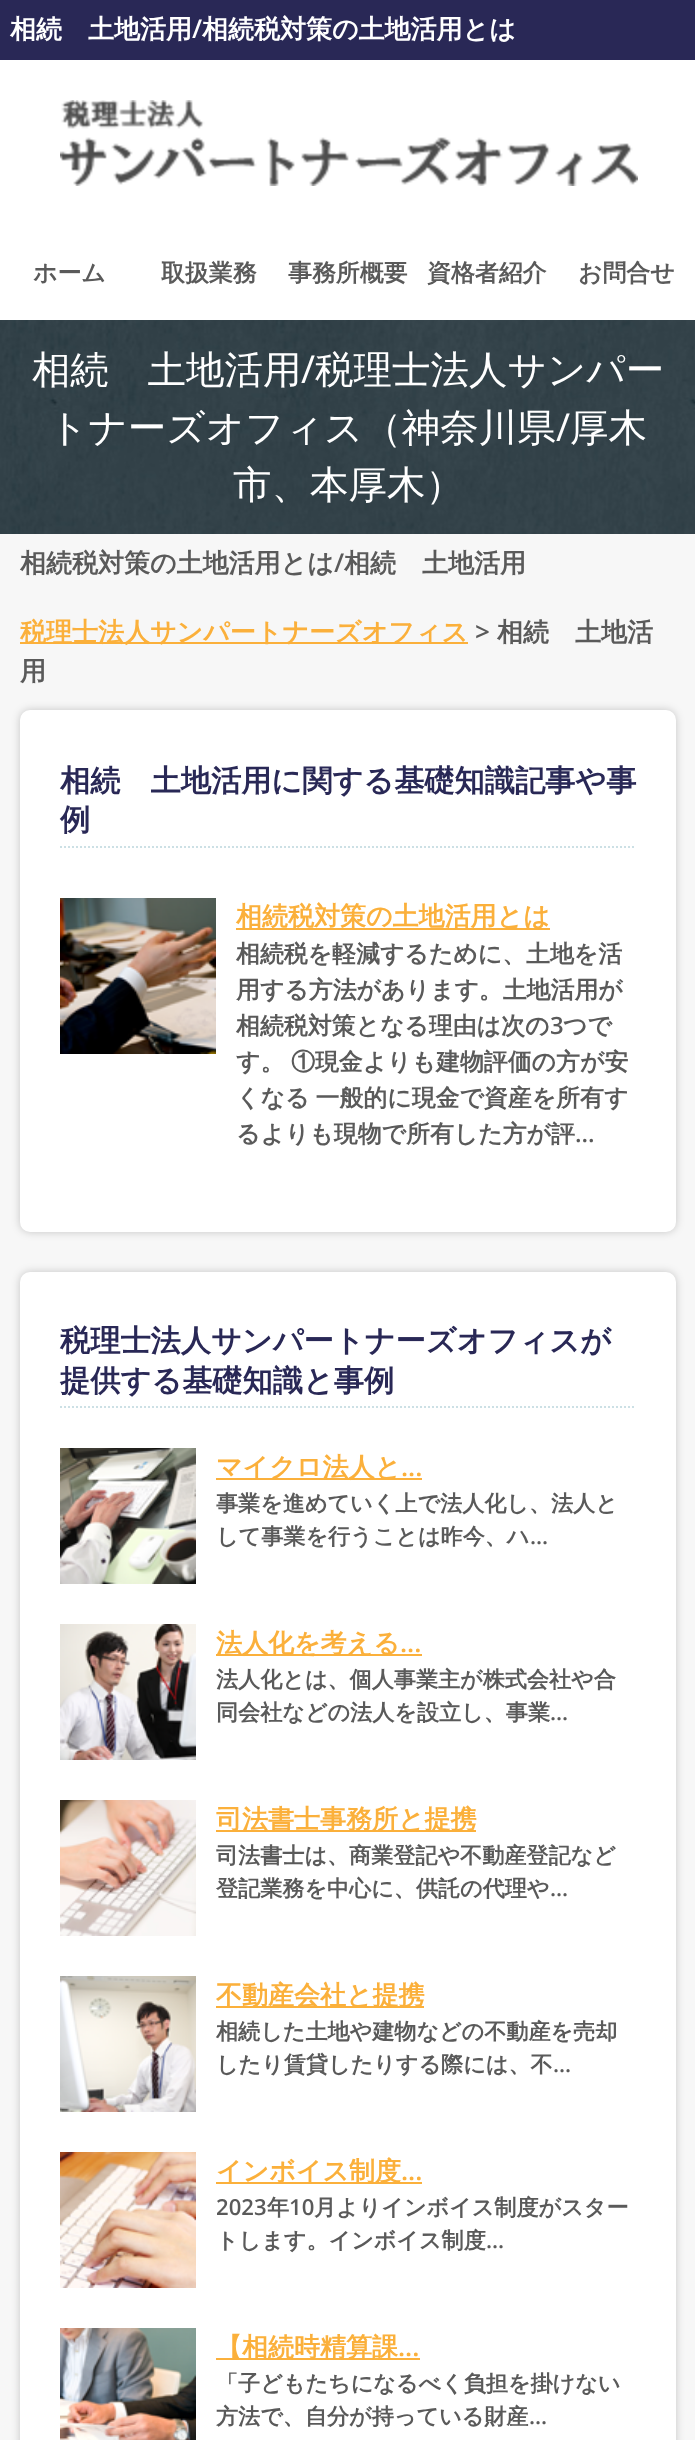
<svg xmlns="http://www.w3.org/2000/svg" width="695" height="2440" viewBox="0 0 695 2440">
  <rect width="100%" height="100%" fill="#f7f7f7"/>
  <path d="M0 60h695v260H0z" fill="#fff"/>
  <path d="M0 0h695v60H0z" fill="#292856"/>
  <image x="60" y="100" width="578" height="86" href="img/1.png"/>
  <image x="0" y="320" width="695" height="214" href="img/2.png"/>
  <path d="M20 642h448v2H20z" fill="#fbb03b"/>
  <rect x="20" y="710" width="656" height="522" rx="10" fill="#00000033" filter="blur(4px)"/>
  <rect x="20" y="710" width="656" height="522" rx="10" fill="#fff"/>
  <path d="M60 847H636" fill="none" stroke="#cce0e5" stroke-width="2" stroke-dasharray="2 2"/>
  <image x="60" y="898" width="156" height="156" href="img/3.png"/>
  <path d="M236 928h314v2H236z" fill="#fbb03b"/>
  <rect x="20" y="1272" width="656" height="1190" rx="10" fill="#00000033" filter="blur(4px)"/>
  <rect x="20" y="1272" width="656" height="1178" rx="10" fill="#fff"/>
  <path d="M60 1407H636" fill="none" stroke="#cce0e5" stroke-width="2" stroke-dasharray="2 2"/>
  <image x="60" y="1448" width="136" height="136" href="img/4.png"/>
  <path d="M216 1478h206v2H216z" fill="#fbb03b"/>
  <image x="60" y="1624" width="136" height="136" href="img/5.png"/>
  <path d="M216 1654h206v2H216z" fill="#fbb03b"/>
  <image x="60" y="1800" width="136" height="136" href="img/6.png"/>
  <path d="M216 1830h260v2H216z" fill="#fbb03b"/>
  <image x="60" y="1976" width="136" height="136" href="img/7.png"/>
  <path d="M216 2006h208v2H216z" fill="#fbb03b"/>
  <image x="60" y="2152" width="136" height="136" href="img/8.png"/>
  <path d="M216 2182h206v2H216z" fill="#fbb03b"/>
  <image x="60" y="2328" width="136" height="112" href="img/9.png"/>
  <path d="M216 2358h204v2H216z" fill="#fbb03b"/>
  <text x="10" y="38" font-family="WenQuanYi Zen Hei" font-size="26" font-weight="bold" fill="#fff">相続　土地活用</text>
  <text x="192" y="38" font-family="Open Sans" font-size="26" font-weight="600" fill="#fff">/</text>
  <text x="202" y="38" font-family="WenQuanYi Zen Hei" font-size="26" font-weight="bold" fill="#fff">相続税対策の土地活用とは</text>
  <g font-family="WenQuanYi Zen Hei" font-size="23.9" font-weight="bold" fill="#5a5a5a">
    <text x="33" y="281">ホーム</text>
    <text x="161" y="281">取扱業務</text>
    <text x="288" y="281">事務所概要</text>
    <text x="427" y="281">資格者紹介</text>
    <text x="578" y="281">お問合せ</text>
  </g>
  <text x="32" y="383" font-family="WenQuanYi Zen Hei" font-size="38.5" font-weight="500" fill="#fff">相続　土地活用</text>
  <text x="301" y="383" font-family="Open Sans" font-size="38.5" fill="#fff">/</text>
  <g font-family="WenQuanYi Zen Hei" font-size="38.5" font-weight="500" fill="#fff">
    <text x="315" y="383">税理士法人サンパー</text>
    <text x="49" y="441">トナーズオフィス（神奈川県</text>
  </g>
  <text x="556" y="441" font-family="Open Sans" font-size="38.5" fill="#fff">/</text>
  <g font-family="WenQuanYi Zen Hei" font-size="38.5" font-weight="500" fill="#fff">
    <text x="570" y="441">厚木</text>
    <text x="233" y="498">市、本厚木）</text>
  </g>
  <text x="20" y="572" font-family="WenQuanYi Zen Hei" font-size="26" font-weight="bold" fill="#5a5a5a">相続税対策の土地活用とは</text>
  <text x="334" y="572" font-family="Open Sans" font-size="26" font-weight="600" fill="#5a5a5a">/</text>
  <text x="344" y="572" font-family="WenQuanYi Zen Hei" font-size="26" font-weight="bold" fill="#5a5a5a">相続　土地活用</text>
  <text x="20" y="641" font-family="WenQuanYi Zen Hei" font-size="26" font-weight="bold" fill="#fbb03b">税理士法人サンパートナーズオフィス</text>
  <text x="475" y="641" font-family="Open Sans" font-size="26" font-weight="600" fill="#5a5a5a">&gt;</text>
  <g font-family="WenQuanYi Zen Hei" font-size="26" font-weight="bold" fill="#5a5a5a">
    <text x="497" y="641">相続　土地活</text>
    <text x="20" y="680">用</text>
  </g>
  <g font-family="WenQuanYi Zen Hei" font-size="30.2" font-weight="bold" fill="#292856">
    <text x="60" y="791">相続　土地活用に関する基礎知識記事や事</text>
    <text x="60" y="830">例</text>
  </g>
  <text x="236" y="925" font-family="WenQuanYi Zen Hei" font-size="26" font-weight="bold" fill="#fbb03b">相続税対策の土地活用とは</text>
  <g font-family="WenQuanYi Zen Hei" font-size="23.9" font-weight="bold" fill="#5a5a5a">
    <text x="236" y="962">相続税を軽減するために、土地を活</text>
    <text x="236" y="998">用する方法があります。土地活用が</text>
    <text x="236" y="1034">相続税対策となる理由は次の</text>
  </g>
  <text x="550" y="1034" font-family="Open Sans" font-size="23.9" font-weight="600" fill="#5a5a5a">3</text>
  <g font-family="WenQuanYi Zen Hei" font-size="23.9" font-weight="bold" fill="#5a5a5a">
    <text x="563" y="1034">つで</text>
    <text x="236" y="1070">す。</text>
    <text x="291" y="1070">①現金よりも建物評価の方が安</text>
    <text x="236" y="1106" word-spacing="-1">くなる 一般的に現金で資産を所有す</text>
    <text x="236" y="1142">るよりも現物で所有した方が評</text>
  </g>
  <text x="575" y="1142" font-family="Open Sans" font-size="23.9" font-weight="600" fill="#5a5a5a">...</text>
  <g font-family="WenQuanYi Zen Hei" font-size="30.2" font-weight="bold" fill="#292856">
    <text x="60" y="1351">税理士法人サンパートナーズオフィスが</text>
    <text x="60" y="1391">提供する基礎知識と事例</text>
  </g>
  <text x="216" y="1476" font-family="WenQuanYi Zen Hei" font-size="26" font-weight="bold" fill="#fbb03b">マイクロ法人と</text>
  <text x="401" y="1476" font-family="Open Sans" font-size="26" font-weight="600" fill="#fbb03b">...</text>
  <g font-family="WenQuanYi Zen Hei" font-size="22.1" font-weight="bold" fill="#5a5a5a">
    <text x="216" y="1511">事業を進めていく上で法人化し、法人と</text>
    <text x="216" y="1544">して事業を行うことは昨今、ハ</text>
  </g>
  <text x="530" y="1544" font-family="Open Sans" font-size="22.1" font-weight="600" fill="#5a5a5a">...</text>
  <text x="216" y="1652" font-family="WenQuanYi Zen Hei" font-size="26" font-weight="bold" fill="#fbb03b">法人化を考える</text>
  <text x="400" y="1652" font-family="Open Sans" font-size="26" font-weight="600" fill="#fbb03b">...</text>
  <g font-family="WenQuanYi Zen Hei" font-size="22.1" font-weight="bold" fill="#5a5a5a">
    <text x="216" y="1687">法人化とは、個人事業主が株式会社や合</text>
    <text x="216" y="1720">同会社などの法人を設立し、事業</text>
  </g>
  <text x="550" y="1720" font-family="Open Sans" font-size="22.1" font-weight="600" fill="#5a5a5a">...</text>
  <text x="216" y="1828" font-family="WenQuanYi Zen Hei" font-size="26" font-weight="bold" fill="#fbb03b">司法書士事務所と提携</text>
  <g font-family="WenQuanYi Zen Hei" font-size="22.1" font-weight="bold" fill="#5a5a5a">
    <text x="216" y="1863">司法書士は、商業登記や不動産登記など</text>
    <text x="216" y="1896">登記業務を中心に、供託の代理や</text>
  </g>
  <text x="550" y="1896" font-family="Open Sans" font-size="22.1" font-weight="600" fill="#5a5a5a">...</text>
  <text x="216" y="2004" font-family="WenQuanYi Zen Hei" font-size="26" font-weight="bold" fill="#fbb03b">不動産会社と提携</text>
  <g font-family="WenQuanYi Zen Hei" font-size="22.1" font-weight="bold" fill="#5a5a5a">
    <text x="216" y="2039">相続した土地や建物などの不動産を売却</text>
    <text x="216" y="2072">したり賃貸したりする際には、不</text>
  </g>
  <text x="553" y="2072" font-family="Open Sans" font-size="22.1" font-weight="600" fill="#5a5a5a">...</text>
  <text x="216" y="2180" font-family="WenQuanYi Zen Hei" font-size="26" font-weight="bold" fill="#fbb03b">インボイス制度</text>
  <text x="401" y="2180" font-family="Open Sans" font-size="26" font-weight="600" fill="#fbb03b">...</text>
  <text x="216" y="2215" font-family="Open Sans" font-size="22.1" font-weight="600" fill="#5a5a5a">2023</text>
  <text x="267" y="2215" font-family="WenQuanYi Zen Hei" font-size="22.1" font-weight="bold" fill="#5a5a5a">年</text>
  <text x="289" y="2215" font-family="Open Sans" font-size="22.1" font-weight="600" fill="#5a5a5a">10</text>
  <g font-family="WenQuanYi Zen Hei" font-size="22.1" font-weight="bold" fill="#5a5a5a">
    <text x="314" y="2215">月よりインボイス制度がスター</text>
    <text x="216" y="2248">トします。インボイス制度</text>
  </g>
  <text x="486" y="2248" font-family="Open Sans" font-size="22.1" font-weight="600" fill="#5a5a5a">...</text>
  <text x="216" y="2356" font-family="WenQuanYi Zen Hei" font-size="26" font-weight="bold" fill="#fbb03b">【相続時精算課</text>
  <text x="398" y="2356" font-family="Open Sans" font-size="26" font-weight="600" fill="#fbb03b">...</text>
  <g font-family="WenQuanYi Zen Hei" font-size="22.1" font-weight="bold" fill="#5a5a5a">
    <text x="216" y="2391">「子どもたちになるべく負担を掛けない</text>
    <text x="216" y="2424">方法で、自分が持っている財産</text>
  </g>
  <text x="529" y="2424" font-family="Open Sans" font-size="22.1" font-weight="600" fill="#5a5a5a">...</text>
</svg>
